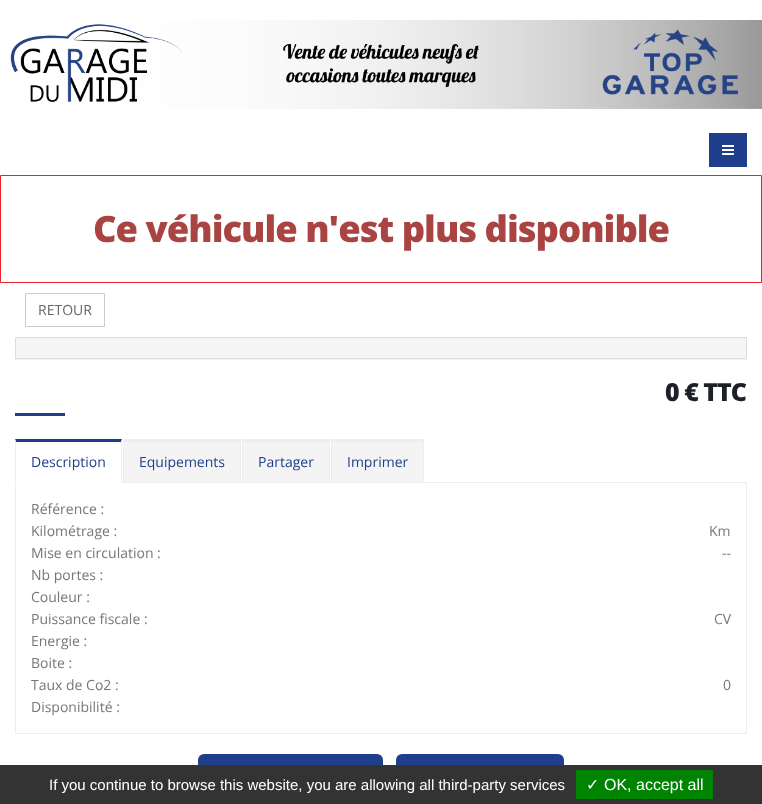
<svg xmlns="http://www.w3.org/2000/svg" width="762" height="804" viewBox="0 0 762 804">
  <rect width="100%" height="100%" fill="#fff"/>
  <image x="10" y="20" width="752" height="89" href="img/1.png"/>
  <path d="M709 133h38v34H709z" fill="#1f3f8c"/>
  <image x="722" y="145" width="12" height="10" href="img/2.png"/>
  <path d="M0.5 175.5h761v107H0.5z" fill="none" stroke="#eb212e"/>
  <path d="M25.5 293.5h79v33H25.5z" fill="none" stroke="#ccc"/>
  <path d="M15 338h732v22H15z" fill="#0000000d" filter="blur(0.5px)"/>
  <path d="M15.5 337.5h731v21H15.5z" fill="none" stroke="#ddd"/>
  <path d="M16 339h730v19H16z" fill="#f5f5f5"/>
  <path d="M15 413h50v3H15z" fill="#1f3f8c"/>
  <path d="M122 482h625v1H122z" fill="#eee"/>
  <path d="M15 439H122L121 442H16Z" fill="#1f3f8c"/>
  <path d="M122 439V483L121 482V442Z" fill="#eee"/>
  <path d="M15 483V439L16 442V482Z" fill="#eee"/>
  <path d="M124 442h116v40H124z" fill="#f4f4f4"/>
  <path d="M123 439h118v3H123z" fill="#eee"/>
  <path d="M240 439h1v43H240z" fill="#eee"/>
  <path d="M123 439h1v43H123z" fill="#eee"/>
  <path d="M243 442h86v40H243z" fill="#f4f4f4"/>
  <path d="M242 439h88v3H242z" fill="#eee"/>
  <path d="M329 439h1v43H329z" fill="#eee"/>
  <path d="M242 439h1v43H242z" fill="#eee"/>
  <path d="M332 442h91v40H332z" fill="#f4f4f4"/>
  <path d="M331 439h93v3H331z" fill="#eee"/>
  <path d="M423 439h1v43H423z" fill="#eee"/>
  <path d="M331 439h1v43H331z" fill="#eee"/>
  <path d="M746 483h1v251H746z" fill="#eee"/>
  <path d="M15 733h732v1H15z" fill="#eee"/>
  <path d="M15 483h1v251H15z" fill="#eee"/>
  <rect x="198" y="754" width="185" height="46" rx="6" fill="#1f3f8c"/>
  <rect x="396" y="754" width="168" height="46" rx="6" fill="#1f3f8c"/>
  <path d="M0 765h762v39H0z" fill="#333"/>
  <path d="M576 770h137v29H576z" fill="#008300"/>
  <text x="93" y="242" font-family="Open Sans" font-size="36.4" font-weight="800" letter-spacing="-1" fill="#a94442">Ce véhicule n'est plus disponible</text>
  <text x="38" y="315" font-family="Open Sans" font-size="14" fill="#666">RETOUR</text>
  <text x="665" y="401" font-family="Open Sans" font-size="25" font-weight="800" letter-spacing="-1" fill="#1d2127">0 € TTC</text>
  <g font-family="Open Sans" font-size="14" fill="#1f3f8c">
    <text x="31" y="467">Description</text>
    <text x="139" y="467">Equipements</text>
    <text x="258" y="467">Partager</text>
    <text x="347" y="467">Imprimer</text>
  </g>
  <g font-family="Open Sans" font-size="14" fill="#777">
    <text x="31" y="514">Référence :</text>
    <text x="31" y="536">Kilométrage :</text>
    <text x="709" y="536">Km</text>
    <text x="31" y="558">Mise en circulation :</text>
    <text x="722" y="558">--</text>
    <text x="31" y="580">Nb portes :</text>
    <text x="31" y="602">Couleur :</text>
    <text x="31" y="624">Puissance fiscale :</text>
    <text x="714" y="624">CV</text>
    <text x="31" y="646">Energie :</text>
    <text x="31" y="668">Boite :</text>
    <text x="31" y="690">Taux de Co2 :</text>
    <text x="723" y="690">0</text>
    <text x="31" y="712">Disponibilité :</text>
  </g>
  <text x="49" y="790" font-family="Liberation Sans" font-size="15" fill="#fff">If you continue to browse this website, you are allowing all third-party services</text>
  <text x="586" y="790" font-family="DejaVu Sans" font-size="16" fill="#fff">✓</text>
  <text x="604" y="790" font-family="Liberation Sans" font-size="16" fill="#fff">OK, accept all</text>
</svg>
